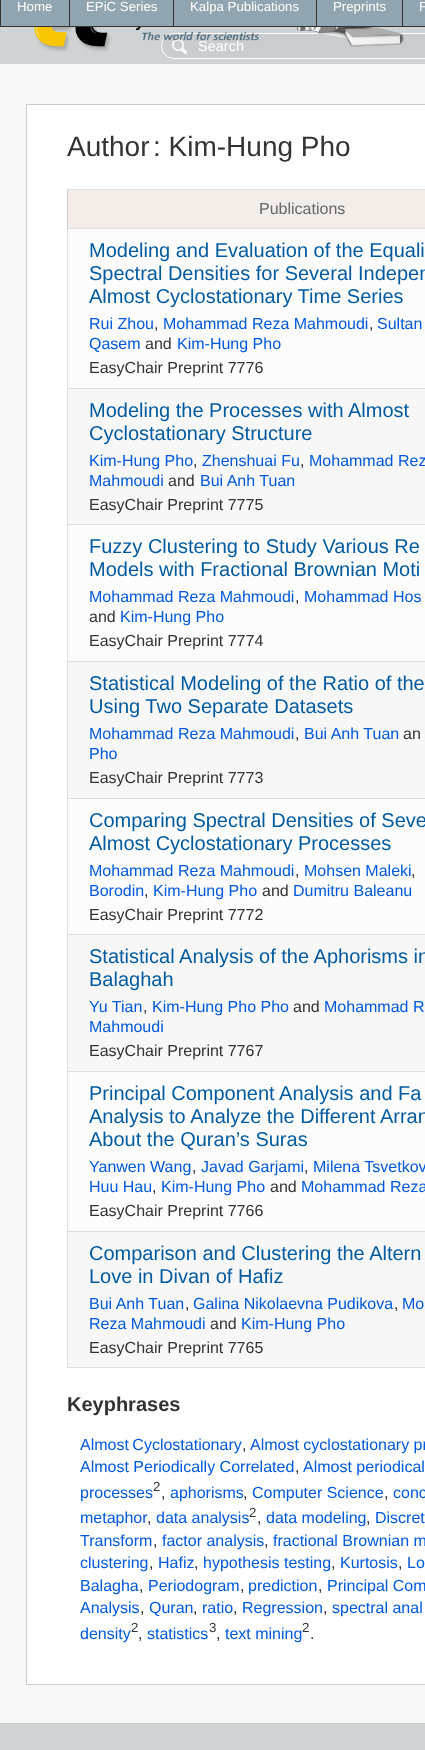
<svg xmlns="http://www.w3.org/2000/svg" width="425" height="1750" viewBox="0 0 425 1750">
  <rect width="100%" height="100%" fill="#90a5b0"/>
  <path d="M402 26h23v1H402z" fill="#333"/>
  <path d="M402 0h1v27H402z" fill="#333"/>
  <path d="M316 26h87v1H316z" fill="#333"/>
  <path d="M316 0h1v27H316z" fill="#333"/>
  <path d="M173 26h144v1H173z" fill="#333"/>
  <path d="M173 0h1v27H173z" fill="#333"/>
  <path d="M69 26h105v1H69z" fill="#333"/>
  <path d="M69 0h1v27H69z" fill="#333"/>
  <path d="M0 26h70v1H0z" fill="#333"/>
  <path d="M0 0h1v27H0z" fill="#333"/>
  <path d="M0 27h425v37H0z" fill="#d0d3d4"/>
  <rect x="161" y="33" width="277" height="26" rx="13" fill="#c9cdd0"/>
  <image x="172" y="39" width="15" height="15" href="img/3.png"/>
  <rect x="161.5" y="33.5" width="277" height="25" rx="12.5" fill="none" stroke="#fff"/>
  <image x="297" y="27" width="107" height="20" href="img/2.png"/>
  <path d="M0 64h425v1659H0z" fill="#f8f8f8"/>
  <path d="M26.5 104.5h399v1580H26.5z" fill="#fff" stroke="#ccc"/>
  <path d="M67 189h358v1H67z" fill="#dedede"/>
  <path d="M67 1367h358v1H67z" fill="#dedede"/>
  <path d="M67 229h1v1139H67z" fill="#dedede"/>
  <path d="M68 190h357v38H68z" fill="#f2ede9"/>
  <path d="M67 228h358v1H67z" fill="#dedede"/>
  <path d="M67 189h1v40H67z" fill="#ccc"/>
  <path d="M68 229h357v159H68z" fill="#fcfcfc"/>
  <path d="M67 388h358v1H67z" fill="#dedede"/>
  <path d="M68 389h357v135H68z" fill="#f7f7f7"/>
  <path d="M67 524h358v1H67z" fill="#dedede"/>
  <path d="M68 525h357v136H68z" fill="#fcfcfc"/>
  <path d="M67 661h358v1H67z" fill="#dedede"/>
  <path d="M68 662h357v136H68z" fill="#f7f7f7"/>
  <path d="M67 798h358v1H67z" fill="#dedede"/>
  <path d="M68 799h357v135H68z" fill="#fcfcfc"/>
  <path d="M67 934h358v1H67z" fill="#dedede"/>
  <path d="M68 935h357v136H68z" fill="#f7f7f7"/>
  <path d="M67 1071h358v1H67z" fill="#dedede"/>
  <path d="M68 1072h357v159H68z" fill="#fcfcfc"/>
  <path d="M67 1231h358v1H67z" fill="#dedede"/>
  <path d="M68 1232h357v135H68z" fill="#f7f7f7"/>
  <path d="M0 1724h425v26H0z" fill="#d0d3d4"/>
  <path d="M0 1723h425v1H0z" fill="#ccc"/>
  <g font-family="Liberation Sans" font-size="13.25" fill="#fff">
    <text x="17" y="11">Home</text>
    <text x="86" y="11">EPiC Series</text>
    <text x="190" y="11">Kalpa Publications</text>
    <text x="333" y="11">Preprints</text>
    <text x="419" y="11">F</text>
  </g>
  <text x="198" y="51" font-family="Liberation Sans" font-size="14.5" fill="#fff">Search</text>
  <image x="34" y="27" width="225" height="25" href="img/1.png"/>
  <g font-family="Liberation Sans" font-size="28" fill="#333">
    <text x="67" y="156">Author</text>
    <text x="153" y="156">: Kim-Hung Pho</text>
  </g>
  <text x="259" y="214" font-family="Liberation Sans" font-size="16" fill="#666">Publications</text>
  <g font-family="Liberation Sans" font-size="20" fill="#005a9f">
    <text x="89" y="257">Modeling and Evaluation of the Equali</text>
    <text x="89" y="280">Spectral Densities for Several Indepen</text>
    <text x="89" y="303">Almost Cyclostationary Time Series</text>
  </g>
  <text x="89" y="329" font-family="Liberation Sans" font-size="16" fill="#0059db">Rui Zhou</text>
  <text x="154" y="329" font-family="Liberation Sans" font-size="16" fill="#333">,</text>
  <text x="163" y="329" font-family="Liberation Sans" font-size="16" fill="#0059db">Mohammad Reza Mahmoudi</text>
  <text x="369" y="329" font-family="Liberation Sans" font-size="16" fill="#333">,</text>
  <g font-family="Liberation Sans" font-size="16" fill="#0059db">
    <text x="377" y="329">Sultan</text>
    <text x="89" y="349">Qasem</text>
  </g>
  <text x="145" y="349" font-family="Liberation Sans" font-size="16" fill="#333">and</text>
  <text x="177" y="349" font-family="Liberation Sans" font-size="16" fill="#0059db">Kim-Hung Pho</text>
  <text x="89" y="373" font-family="Liberation Sans" font-size="16" fill="#333">EasyChair Preprint 7776</text>
  <g font-family="Liberation Sans" font-size="20" fill="#005a9f">
    <text x="89" y="417">Modeling the Processes with Almost</text>
    <text x="89" y="440">Cyclostationary Structure</text>
  </g>
  <text x="89" y="466" font-family="Liberation Sans" font-size="16" fill="#0059db">Kim-Hung Pho</text>
  <text x="193" y="466" font-family="Liberation Sans" font-size="16" fill="#333">,</text>
  <text x="202" y="466" font-family="Liberation Sans" font-size="16" fill="#0059db">Zhenshuai Fu</text>
  <text x="300" y="466" font-family="Liberation Sans" font-size="16" fill="#333">,</text>
  <g font-family="Liberation Sans" font-size="16" fill="#0059db">
    <text x="309" y="466">Mohammad Rez</text>
    <text x="89" y="486">Mahmoudi</text>
  </g>
  <text x="168" y="486" font-family="Liberation Sans" font-size="16" fill="#333">and</text>
  <text x="200" y="486" font-family="Liberation Sans" font-size="16" fill="#0059db">Bui Anh Tuan</text>
  <text x="89" y="510" font-family="Liberation Sans" font-size="16" fill="#333">EasyChair Preprint 7775</text>
  <g font-family="Liberation Sans" font-size="20" fill="#005a9f">
    <text x="89" y="553">Fuzzy Clustering to Study Various Re</text>
    <text x="89" y="576">Models with Fractional Brownian Moti</text>
  </g>
  <text x="89" y="602" font-family="Liberation Sans" font-size="16" fill="#0059db">Mohammad Reza Mahmoudi</text>
  <text x="295" y="602" font-family="Liberation Sans" font-size="16" fill="#333">,</text>
  <text x="304" y="602" font-family="Liberation Sans" font-size="16" fill="#0059db">Mohammad Hos</text>
  <text x="89" y="622" font-family="Liberation Sans" font-size="16" fill="#333">and</text>
  <text x="120" y="622" font-family="Liberation Sans" font-size="16" fill="#0059db">Kim-Hung Pho</text>
  <text x="89" y="646" font-family="Liberation Sans" font-size="16" fill="#333">EasyChair Preprint 7774</text>
  <g font-family="Liberation Sans" font-size="20" fill="#005a9f">
    <text x="89" y="690">Statistical Modeling of the Ratio of the</text>
    <text x="89" y="713">Using Two Separate Datasets</text>
  </g>
  <text x="89" y="739" font-family="Liberation Sans" font-size="16" fill="#0059db">Mohammad Reza Mahmoudi</text>
  <text x="295" y="739" font-family="Liberation Sans" font-size="16" fill="#333">,</text>
  <text x="304" y="739" font-family="Liberation Sans" font-size="16" fill="#0059db">Bui Anh Tuan</text>
  <text x="403" y="739" font-family="Liberation Sans" font-size="16" fill="#333">an</text>
  <text x="89" y="759" font-family="Liberation Sans" font-size="16" fill="#0059db">Pho</text>
  <text x="89" y="783" font-family="Liberation Sans" font-size="16" fill="#333">EasyChair Preprint 7773</text>
  <g font-family="Liberation Sans" font-size="20" fill="#005a9f">
    <text x="89" y="827">Comparing Spectral Densities of Seve</text>
    <text x="89" y="850">Almost Cyclostationary Processes</text>
  </g>
  <text x="89" y="876" font-family="Liberation Sans" font-size="16" fill="#0059db">Mohammad Reza Mahmoudi</text>
  <text x="295" y="876" font-family="Liberation Sans" font-size="16" fill="#333">,</text>
  <text x="304" y="876" font-family="Liberation Sans" font-size="16" fill="#0059db">Mohsen Maleki</text>
  <text x="411" y="876" font-family="Liberation Sans" font-size="16" fill="#333">,</text>
  <text x="89" y="896" font-family="Liberation Sans" font-size="16" fill="#0059db">Borodin</text>
  <text x="144" y="896" font-family="Liberation Sans" font-size="16" fill="#333">,</text>
  <text x="153" y="896" font-family="Liberation Sans" font-size="16" fill="#0059db">Kim-Hung Pho</text>
  <text x="262" y="896" font-family="Liberation Sans" font-size="16" fill="#333">and</text>
  <text x="293" y="896" font-family="Liberation Sans" font-size="16" fill="#0059db">Dumitru Baleanu</text>
  <text x="89" y="920" font-family="Liberation Sans" font-size="16" fill="#333">EasyChair Preprint 7772</text>
  <g font-family="Liberation Sans" font-size="20" fill="#005a9f">
    <text x="89" y="963">Statistical Analysis of the Aphorisms in</text>
    <text x="89" y="986">Balaghah</text>
  </g>
  <text x="89" y="1012" font-family="Liberation Sans" font-size="16" fill="#0059db">Yu Tian</text>
  <text x="143" y="1012" font-family="Liberation Sans" font-size="16" fill="#333">,</text>
  <text x="152" y="1012" font-family="Liberation Sans" font-size="16" fill="#0059db">Kim-Hung Pho Pho</text>
  <text x="293" y="1012" font-family="Liberation Sans" font-size="16" fill="#333">and</text>
  <g font-family="Liberation Sans" font-size="16" fill="#0059db">
    <text x="324" y="1012">Mohammad R</text>
    <text x="89" y="1032">Mahmoudi</text>
  </g>
  <text x="89" y="1056" font-family="Liberation Sans" font-size="16" fill="#333">EasyChair Preprint 7767</text>
  <g font-family="Liberation Sans" font-size="20" fill="#005a9f">
    <text x="89" y="1100">Principal Component Analysis and Fa</text>
    <text x="89" y="1123">Analysis to Analyze the Different Arran</text>
    <text x="89" y="1146">About the Quran’s Suras</text>
  </g>
  <text x="89" y="1172" font-family="Liberation Sans" font-size="16" fill="#0059db">Yanwen Wang</text>
  <text x="192" y="1172" font-family="Liberation Sans" font-size="16" fill="#333">,</text>
  <text x="201" y="1172" font-family="Liberation Sans" font-size="16" fill="#0059db">Javad Garjami</text>
  <text x="304" y="1172" font-family="Liberation Sans" font-size="16" fill="#333">,</text>
  <g font-family="Liberation Sans" font-size="16" fill="#0059db">
    <text x="313" y="1172">Milena Tsvetkov</text>
    <text x="89" y="1192">Huu Hau</text>
  </g>
  <text x="152" y="1192" font-family="Liberation Sans" font-size="16" fill="#333">,</text>
  <text x="161" y="1192" font-family="Liberation Sans" font-size="16" fill="#0059db">Kim-Hung Pho</text>
  <text x="270" y="1192" font-family="Liberation Sans" font-size="16" fill="#333">and</text>
  <text x="301" y="1192" font-family="Liberation Sans" font-size="16" fill="#0059db">Mohammad Reza</text>
  <text x="89" y="1216" font-family="Liberation Sans" font-size="16" fill="#333">EasyChair Preprint 7766</text>
  <g font-family="Liberation Sans" font-size="20" fill="#005a9f">
    <text x="89" y="1260">Comparison and Clustering the Altern</text>
    <text x="89" y="1283">Love in Divan of Hafiz</text>
  </g>
  <text x="89" y="1309" font-family="Liberation Sans" font-size="16" fill="#0059db">Bui Anh Tuan</text>
  <text x="185" y="1309" font-family="Liberation Sans" font-size="16" fill="#333">,</text>
  <text x="193" y="1309" font-family="Liberation Sans" font-size="16" fill="#0059db">Galina Nikolaevna Pudikova</text>
  <text x="394" y="1309" font-family="Liberation Sans" font-size="16" fill="#333">,</text>
  <g font-family="Liberation Sans" font-size="16" fill="#0059db">
    <text x="402" y="1309">Mo</text>
    <text x="89" y="1329">Reza Mahmoudi</text>
  </g>
  <text x="210" y="1329" font-family="Liberation Sans" font-size="16" fill="#333">and</text>
  <text x="241" y="1329" font-family="Liberation Sans" font-size="16" fill="#0059db">Kim-Hung Pho</text>
  <text x="89" y="1353" font-family="Liberation Sans" font-size="16" fill="#333">EasyChair Preprint 7765</text>
  <text x="67" y="1411" font-family="Liberation Sans" font-size="20" font-weight="bold" fill="#333">Keyphrases</text>
  <text x="80" y="1450" word-spacing="-1" font-family="Liberation Sans" font-size="16" fill="#0059db">Almost Cyclostationary</text>
  <text x="242" y="1450" font-family="Liberation Sans" font-size="16" fill="#333">,</text>
  <g font-family="Liberation Sans" font-size="16" fill="#0059db">
    <text x="250" y="1450">Almost cyclostationary pr</text>
    <text x="80" y="1472">Almost Periodically Correlated</text>
  </g>
  <text x="295" y="1472" font-family="Liberation Sans" font-size="16" fill="#333">,</text>
  <g font-family="Liberation Sans" font-size="16" fill="#0059db">
    <text x="303" y="1472">Almost periodical</text>
    <text x="80" y="1498">processes</text>
  </g>
  <text x="153" y="1491" font-family="Liberation Sans" font-size="13.25" fill="#333">2</text>
  <text x="161" y="1498" font-family="Liberation Sans" font-size="16" fill="#333">,</text>
  <text x="170" y="1498" font-family="Liberation Sans" font-size="16" fill="#0059db">aphorisms</text>
  <text x="243" y="1498" font-family="Liberation Sans" font-size="16" fill="#333">,</text>
  <text x="252" y="1498" font-family="Liberation Sans" font-size="16" fill="#0059db">Computer Science</text>
  <text x="384" y="1498" font-family="Liberation Sans" font-size="16" fill="#333">,</text>
  <g font-family="Liberation Sans" font-size="16" fill="#0059db">
    <text x="393" y="1498">conc</text>
    <text x="80" y="1523">metaphor</text>
  </g>
  <text x="147" y="1523" font-family="Liberation Sans" font-size="16" fill="#333">,</text>
  <text x="156" y="1523" font-family="Liberation Sans" font-size="16" fill="#0059db">data analysis</text>
  <text x="249" y="1517" font-family="Liberation Sans" font-size="13.25" fill="#333">2</text>
  <text x="257" y="1523" font-family="Liberation Sans" font-size="16" fill="#333">,</text>
  <text x="266" y="1523" font-family="Liberation Sans" font-size="16" fill="#0059db">data modeling</text>
  <text x="366" y="1523" font-family="Liberation Sans" font-size="16" fill="#333">,</text>
  <g font-family="Liberation Sans" font-size="16" fill="#0059db">
    <text x="375" y="1523">Discret</text>
    <text x="80" y="1546">Transform</text>
  </g>
  <text x="153" y="1546" font-family="Liberation Sans" font-size="16" fill="#333">,</text>
  <text x="162" y="1546" font-family="Liberation Sans" font-size="16" fill="#0059db">factor analysis</text>
  <text x="264" y="1546" font-family="Liberation Sans" font-size="16" fill="#333">,</text>
  <g font-family="Liberation Sans" font-size="16" fill="#0059db">
    <text x="273" y="1546">fractional Brownian m</text>
    <text x="80" y="1568">clustering</text>
  </g>
  <text x="149" y="1568" font-family="Liberation Sans" font-size="16" fill="#333">,</text>
  <text x="158" y="1568" font-family="Liberation Sans" font-size="16" fill="#0059db">Hafiz</text>
  <text x="194" y="1568" font-family="Liberation Sans" font-size="16" fill="#333">,</text>
  <text x="203" y="1568" font-family="Liberation Sans" font-size="16" fill="#0059db">hypothesis testing</text>
  <text x="331" y="1568" font-family="Liberation Sans" font-size="16" fill="#333">,</text>
  <text x="340" y="1568" font-family="Liberation Sans" font-size="16" fill="#0059db">Kurtosis</text>
  <text x="398" y="1568" font-family="Liberation Sans" font-size="16" fill="#333">,</text>
  <g font-family="Liberation Sans" font-size="16" fill="#0059db">
    <text x="407" y="1568">Lo</text>
    <text x="80" y="1591">Balagha</text>
  </g>
  <text x="139" y="1591" font-family="Liberation Sans" font-size="16" fill="#333">,</text>
  <text x="148" y="1591" font-family="Liberation Sans" font-size="16" fill="#0059db">Periodogram</text>
  <text x="240" y="1591" font-family="Liberation Sans" font-size="16" fill="#333">,</text>
  <text x="248" y="1591" font-family="Liberation Sans" font-size="16" fill="#0059db">prediction</text>
  <text x="318" y="1591" font-family="Liberation Sans" font-size="16" fill="#333">,</text>
  <g font-family="Liberation Sans" font-size="16" fill="#0059db">
    <text x="327" y="1591">Principal Com</text>
    <text x="80" y="1613">Analysis</text>
  </g>
  <text x="140" y="1613" font-family="Liberation Sans" font-size="16" fill="#333">,</text>
  <text x="149" y="1613" font-family="Liberation Sans" font-size="16" fill="#0059db">Quran</text>
  <text x="193" y="1613" font-family="Liberation Sans" font-size="16" fill="#333">,</text>
  <text x="202" y="1613" font-family="Liberation Sans" font-size="16" fill="#0059db">ratio</text>
  <text x="233" y="1613" font-family="Liberation Sans" font-size="16" fill="#333">,</text>
  <text x="242" y="1613" font-family="Liberation Sans" font-size="16" fill="#0059db">Regression</text>
  <text x="323" y="1613" font-family="Liberation Sans" font-size="16" fill="#333">,</text>
  <g font-family="Liberation Sans" font-size="16" fill="#0059db">
    <text x="332" y="1613">spectral anal</text>
    <text x="80" y="1639">density</text>
  </g>
  <text x="131" y="1632" font-family="Liberation Sans" font-size="13.25" fill="#333">2</text>
  <text x="138" y="1639" font-family="Liberation Sans" font-size="16" fill="#333">,</text>
  <text x="147" y="1639" font-family="Liberation Sans" font-size="16" fill="#0059db">statistics</text>
  <text x="209" y="1632" font-family="Liberation Sans" font-size="13.25" fill="#333">3</text>
  <text x="216" y="1639" font-family="Liberation Sans" font-size="16" fill="#333">,</text>
  <text x="225" y="1639" font-family="Liberation Sans" font-size="16" fill="#0059db">text mining</text>
  <text x="302" y="1632" font-family="Liberation Sans" font-size="13.25" fill="#333">2</text>
  <text x="310" y="1639" font-family="Liberation Sans" font-size="16" fill="#333">.</text>
</svg>
